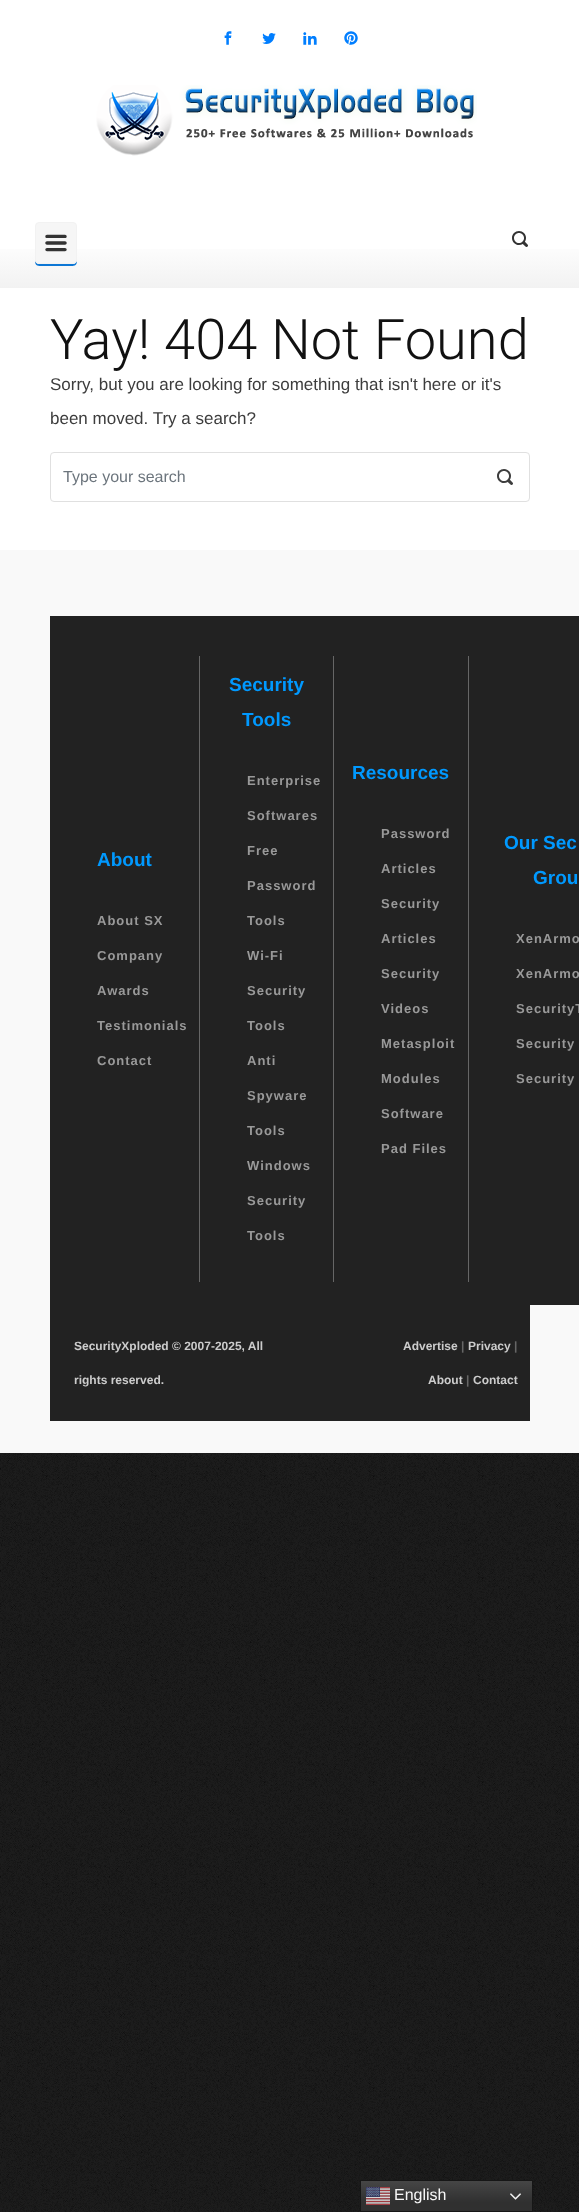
<svg xmlns="http://www.w3.org/2000/svg" width="579" height="2212" viewBox="0 0 579 2212">
  <defs>
    <linearGradient id="g1" gradientUnits="userSpaceOnUse" x1="290" y1="198" x2="290" y2="288"><stop offset="0.5" stop-color="#fefefe"/><stop offset="1" stop-color="#f2f2f2"/></linearGradient>
    <linearGradient id="g2" gradientUnits="userSpaceOnUse" x1="447" y1="2180" x2="447" y2="2212"><stop offset="0" stop-color="#474747"/><stop offset="0.7" stop-color="#303030"/></linearGradient>
  </defs>
  <rect width="100%" height="100%" fill="#fff"/>
  <image x="0" y="1453" width="579" height="759" href="img/1.png"/>
  <path d="M0 550h579v903H0z" fill="#f9f9f9"/>
  <image x="224" y="31" width="8" height="14" href="img/2.png"/>
  <image x="262" y="33" width="14" height="11" href="img/3.png"/>
  <image x="303" y="32" width="14" height="13" href="img/4.png"/>
  <image x="344" y="31" width="14" height="14" href="img/5.png"/>
  <image x="96" y="85" width="381" height="71" href="img/6.png"/>
  <path d="M0 249h579v39H0z" fill="url(#g1)"/>
  <path d="M35 260C35 267 38 266 45 266H67C74 266 77 267 77 260C77 262 75 264 73 264H39C37 264 35 262 35 260Z" fill="#0d77d5"/>
  <rect x="35.5" y="222.5" width="41" height="41" rx="3.5" fill="#f6f6f6" stroke="#f2f2f2"/>
  <image x="45" y="234" width="22" height="18" href="img/7.png"/>
  <image x="512" y="231" width="16" height="16" href="img/8.png"/>
  <rect x="50.5" y="452.5" width="479" height="49" rx="3.5" fill="none" stroke="#e0e0e0"/>
  <image x="497" y="469" width="16" height="16" href="img/9.png"/>
  <path d="M50 616h529v689H50z" fill="#222"/>
  <path d="M199 656h1v626H199z" fill="#666"/>
  <path d="M333 656h1v626H333z" fill="#666"/>
  <path d="M468 656h1v626H468z" fill="#666"/>
  <path d="M50 1305h480v116H50z" fill="#222"/>
  <path d="M361 2181h171v30H361z" fill="url(#g2)"/>
  <path d="M360.5 2180.5h172v31H360.5z" fill="none" stroke="#161616"/>
  <image x="366" y="2187" width="24" height="18" href="img/10.png"/>
  <image x="510" y="2193" width="11" height="7" href="img/11.png"/>
  <text x="50" y="359" font-family="Roboto" font-size="56" font-weight="300" fill="#111">Yay! 404 Not Found</text>
  <g font-family="Liberation Sans" font-size="17" fill="#3d3d3d">
    <text x="50" y="390">Sorry, but you are looking for something that isn't here or it's</text>
    <text x="50" y="424">been moved. Try a search?</text>
  </g>
  <text x="63" y="482" font-family="Liberation Sans" font-size="16" fill="#6c757d">Type your search</text>
  <text x="97" y="866" font-family="Liberation Sans" font-size="19" font-weight="bold" fill="#09f">About</text>
  <g font-family="Liberation Sans" font-size="13" font-weight="bold" letter-spacing="1" fill="#999">
    <text x="97" y="925">About SX</text>
    <text x="97" y="960">Company</text>
    <text x="97" y="995">Awards</text>
    <text x="97" y="1030">Testimonials</text>
    <text x="97" y="1065">Contact</text>
  </g>
  <g font-family="Liberation Sans" font-size="19" font-weight="bold" fill="#09f">
    <text x="229" y="691">Security</text>
    <text x="242" y="726">Tools</text>
  </g>
  <g font-family="Liberation Sans" font-size="13" font-weight="bold" letter-spacing="1" fill="#999">
    <text x="247" y="785">Enterprise</text>
    <text x="247" y="820">Softwares</text>
    <text x="247" y="855">Free</text>
    <text x="247" y="890">Password</text>
    <text x="247" y="925">Tools</text>
    <text x="247" y="960">Wi-Fi</text>
    <text x="247" y="995">Security</text>
    <text x="247" y="1030">Tools</text>
    <text x="247" y="1065">Anti</text>
    <text x="247" y="1100">Spyware</text>
    <text x="247" y="1135">Tools</text>
    <text x="247" y="1170">Windows</text>
    <text x="247" y="1205">Security</text>
    <text x="247" y="1240">Tools</text>
  </g>
  <text x="352" y="779" font-family="Liberation Sans" font-size="19" font-weight="bold" fill="#09f">Resources</text>
  <g font-family="Liberation Sans" font-size="13" font-weight="bold" letter-spacing="1" fill="#999">
    <text x="381" y="838">Password</text>
    <text x="381" y="873">Articles</text>
    <text x="381" y="908">Security</text>
    <text x="381" y="943">Articles</text>
    <text x="381" y="978">Security</text>
    <text x="381" y="1013">Videos</text>
    <text x="381" y="1048">Metasploit</text>
    <text x="381" y="1083">Modules</text>
    <text x="381" y="1118">Software</text>
    <text x="381" y="1153">Pad Files</text>
  </g>
  <g font-family="Liberation Sans" font-size="19" font-weight="bold" fill="#09f">
    <text x="504" y="849">Our Sec</text>
    <text x="533" y="884">Grou</text>
  </g>
  <g font-family="Liberation Sans" font-size="13" font-weight="bold" letter-spacing="1" fill="#999">
    <text x="516" y="943">XenArmo</text>
    <text x="516" y="978">XenArmo</text>
    <text x="516" y="1013">SecurityT</text>
    <text x="516" y="1048">Security</text>
    <text x="516" y="1083">Security</text>
  </g>
  <g font-family="Liberation Sans" font-size="12" font-weight="bold" fill="#ccc">
    <text x="74" y="1350">SecurityXploded © 2007-2025, All</text>
    <text x="74" y="1384">rights reserved.</text>
    <text x="403" y="1350">Advertise</text>
  </g>
  <text x="461" y="1350" font-family="Liberation Sans" font-size="12" font-weight="bold" fill="#666">|</text>
  <text x="468" y="1350" font-family="Liberation Sans" font-size="12" font-weight="bold" fill="#ccc">Privacy</text>
  <text x="514" y="1350" font-family="Liberation Sans" font-size="12" font-weight="bold" fill="#666">|</text>
  <text x="428" y="1384" font-family="Liberation Sans" font-size="12" font-weight="bold" fill="#ccc">About</text>
  <text x="466" y="1384" font-family="Liberation Sans" font-size="12" font-weight="bold" fill="#666">|</text>
  <text x="473" y="1384" font-family="Liberation Sans" font-size="12" font-weight="bold" fill="#ccc">Contact</text>
  <text x="394" y="2200" font-family="Liberation Sans" font-size="16" fill="#f7f7f7">English</text>
</svg>
